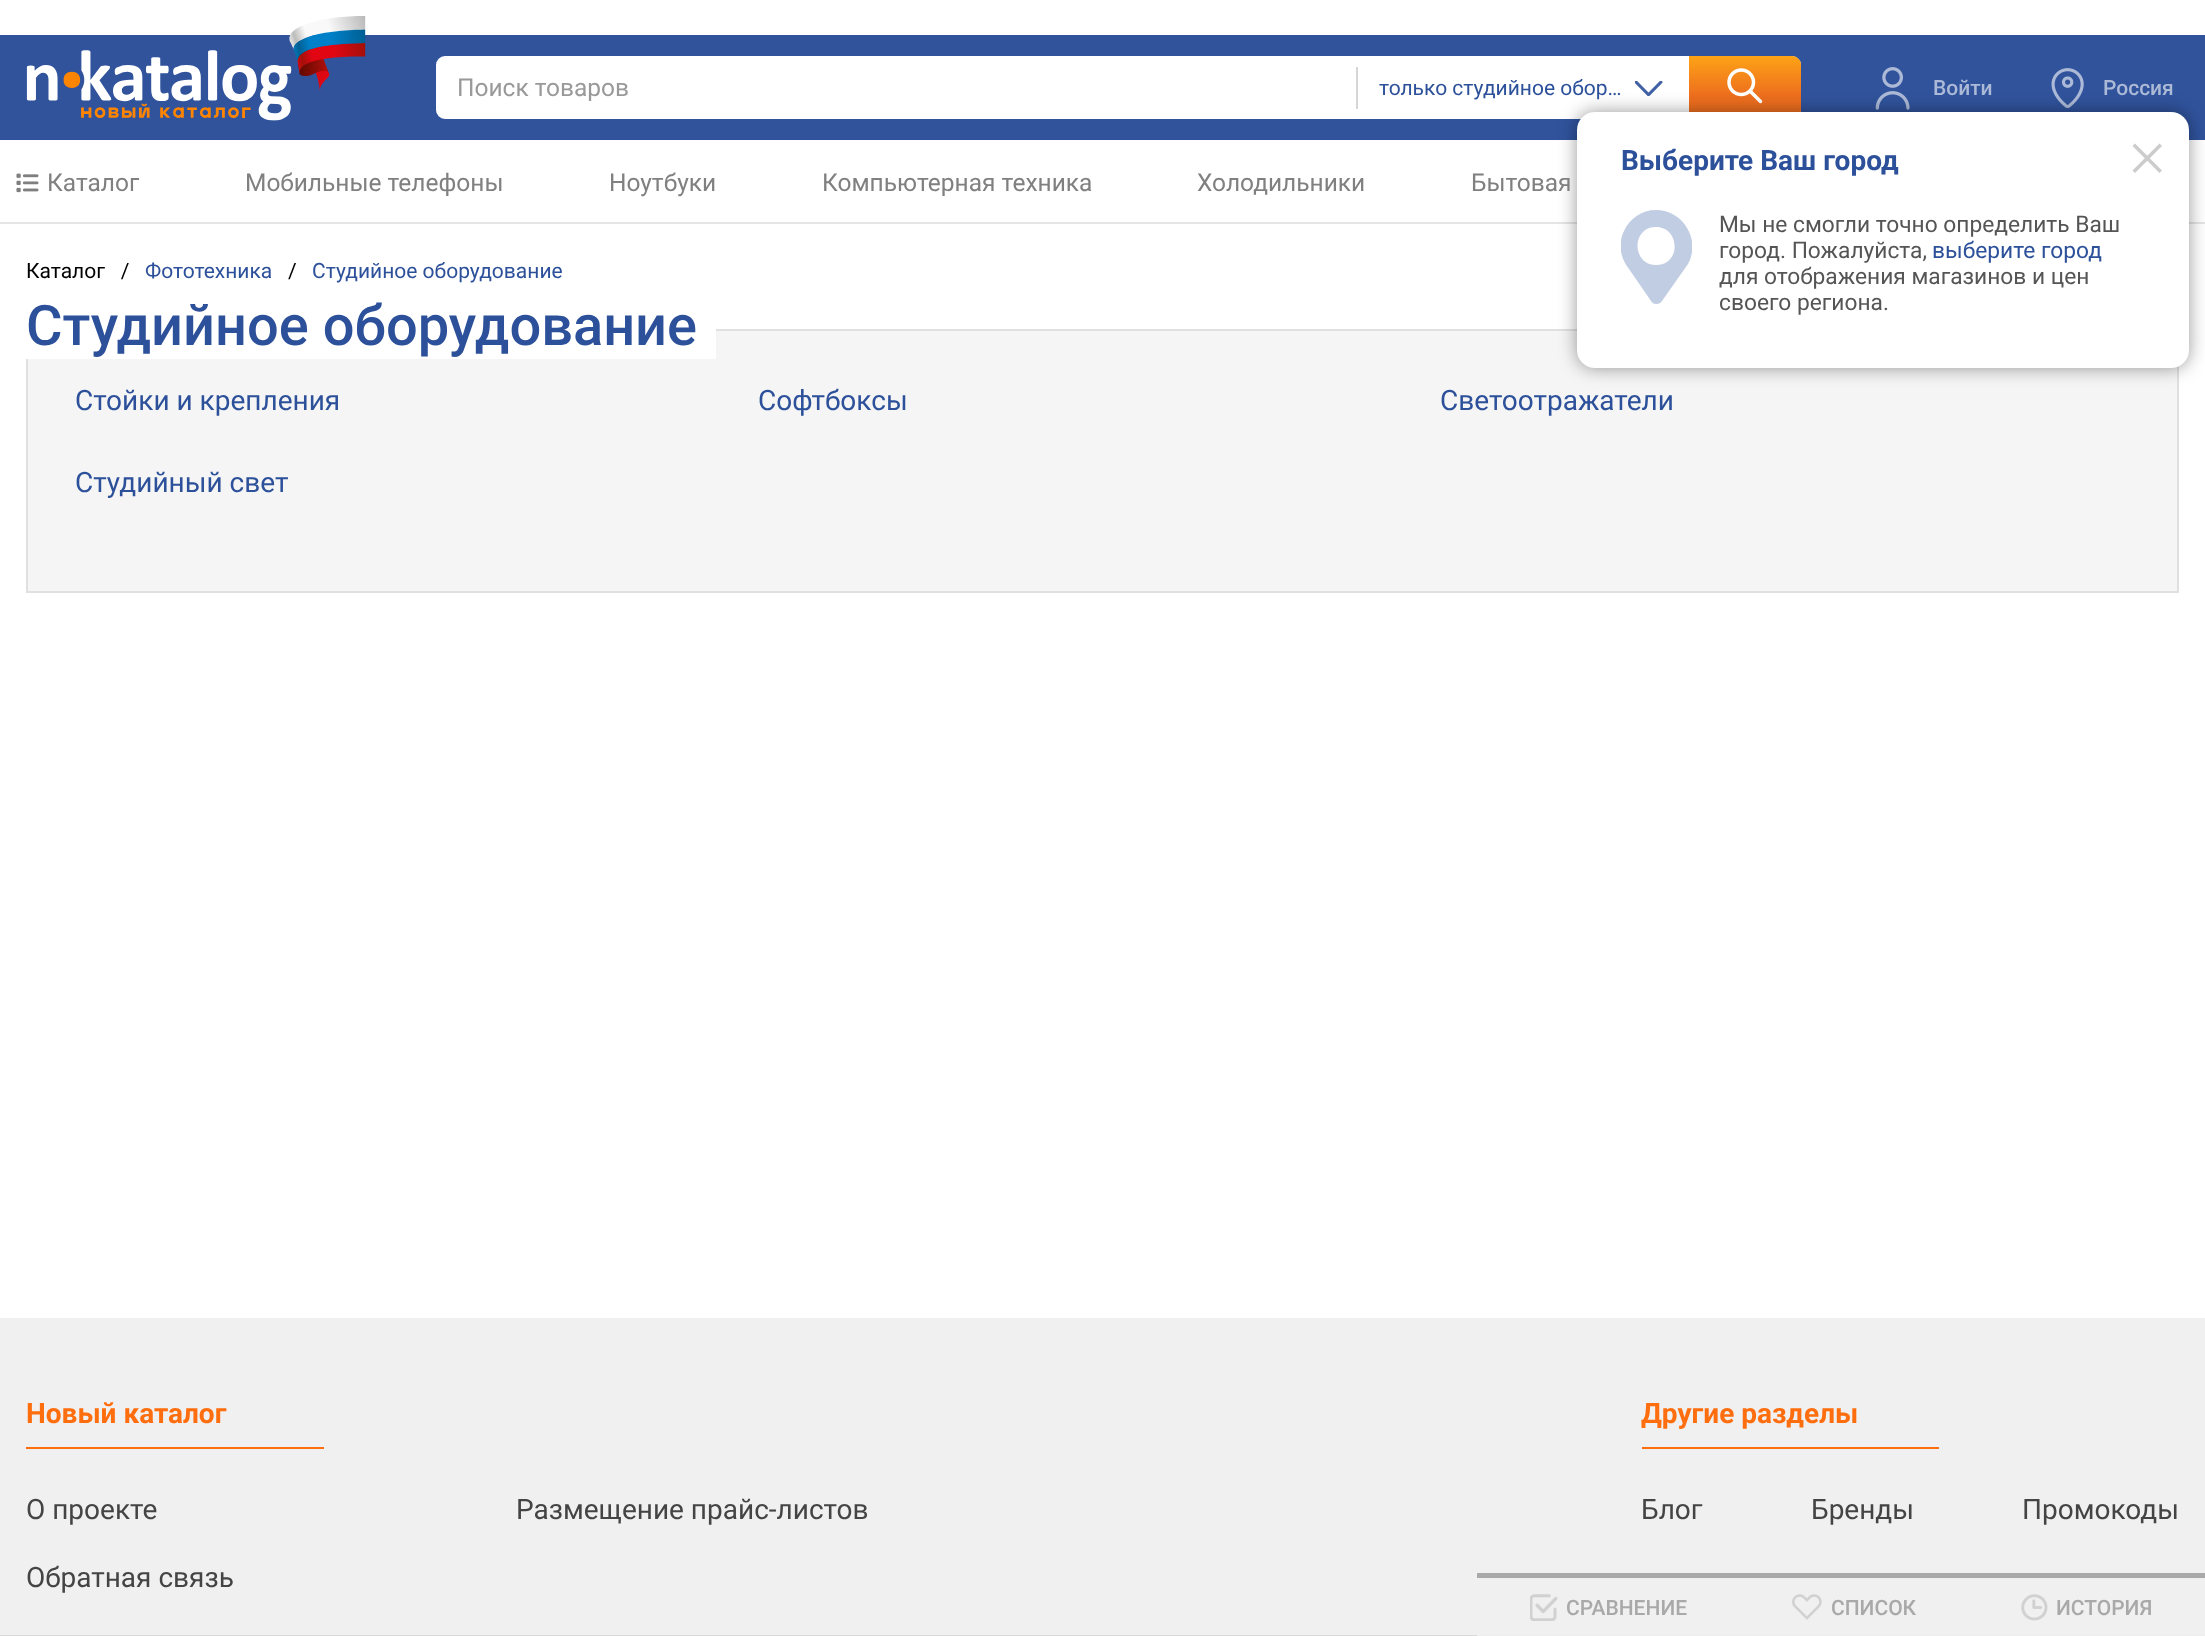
<svg xmlns="http://www.w3.org/2000/svg" width="2205" height="1636" viewBox="0 0 2205 1636">
  <defs>
    <linearGradient id="g1" gradientUnits="userSpaceOnUse" x1="1745" y1="119" x2="1745" y2="52"><stop offset="0.34" stop-color="#ed6e1e"/><stop offset="0.68" stop-color="#f68b1a"/><stop offset="1" stop-color="#ffa915"/></linearGradient>
    <clipPath id="clip1"><path d="M1621 210h71v95H1621z"/></clipPath>
  </defs>
  <rect width="100%" height="100%" fill="#fff"/>
  <path d="M0 35h2205v105H0z" fill="#30539c"/>
  <image x="26" y="16" width="340" height="105" href="img/1.png"/>
  <rect x="441.5" y="61.5" width="1354" height="52" rx="3.5" fill="#fff" stroke="#fff" stroke-width="11"/>
  <path d="M1356 67h2v42H1356z" fill="#d6d6d6"/>
  <image x="1635" y="81" width="28" height="15" href="img/2.png"/>
  <path d="M1689 56H1792C1797 56 1801 60 1801 65V110C1801 115 1797 119 1792 119H1689Z" fill="url(#g1)"/>
  <image x="1727" y="68" width="36" height="36" href="img/3.png"/>
  <image x="1875" y="67" width="35" height="43" href="img/4.png"/>
  <image x="2051" y="68" width="33" height="41" href="img/5.png"/>
  <path d="M0 222h2205v2H0z" fill="#e5e5e5"/>
  <path d="M27 330h2151v262H27z" fill="#f5f5f5" stroke="#e0e0e0" stroke-width="2"/>
  <rect x="1577" y="112" width="612" height="256" rx="18" fill="#00000066" filter="blur(9px)"/>
  <rect x="1577" y="112" width="612" height="256" rx="18" fill="#fff"/>
  <path d="M2135 143.5L2162 170.5L2159.5 173L2132.5 146Z" fill="#ccc"/>
  <path d="M2132.5 170.5L2159.5 143.5L2162 146L2135 173Z" fill="#ccc"/>
  <g clip-path="url(#clip1)">
    <path d="M1656 210C1642 210 1630 218 1624 231C1618 243 1620 258 1629 269L1651 301C1652 303 1654 304 1656 304C1659 304 1661 303 1662 301L1688 264C1694 253 1694 239 1687 228C1681 217 1669 210 1656 210ZM1656 265C1632 265 1631 228 1655 227C1680 226 1682 265 1656 265Z" fill="#c1cde2"/>
  </g>
  <image x="16" y="173" width="23" height="20" href="img/6.png"/>
  <path d="M26 329h690v30H26z" fill="#fff"/>
  <path d="M0 1318h2205v317H0z" fill="#f0f0f0"/>
  <path d="M26 1447h298v2H26z" fill="#ff6e0e"/>
  <path d="M1642 1447h297v2H1642z" fill="#ff6e0e"/>
  <path d="M0 1635h1477v1H0z" fill="#d9d9d9"/>
  <path d="M1477 1635h728v1H1477z" fill="#eee"/>
  <path d="M1477 1573h728v5H1477z" fill="#a9a9a9"/>
  <image x="1530" y="1594" width="28" height="27" href="img/7.png"/>
  <image x="1792" y="1594" width="30" height="26" href="img/8.png"/>
  <image x="2021" y="1594" width="27" height="27" href="img/9.png"/>
  <text x="457" y="96" font-family="Roboto" font-size="24.5" fill="#999">Поиск товаров</text>
  <text x="1379" y="95" font-family="Roboto" font-size="21" fill="#2c509a">только cтудийное обор…</text>
  <g font-family="Roboto" font-size="21" font-weight="500" fill="#acbad7">
    <text x="1933" y="95">Войти</text>
    <text x="2103" y="95">Россия</text>
  </g>
  <text x="1621" y="170" font-family="Roboto" font-size="28" font-weight="bold" fill="#2c509a">Выберите Ваш город</text>
  <g font-family="Roboto" font-size="22.75" fill="#555">
    <text x="1719" y="232">Мы не смогли точно определить Ваш</text>
    <text x="1719" y="258">город. Пожалуйста,</text>
  </g>
  <text x="1932" y="258" font-family="Roboto" font-size="22.75" fill="#2c509a">выберите город</text>
  <g font-family="Roboto" font-size="22.75" fill="#555">
    <text x="1719" y="284">для отображения магазинов и цен</text>
    <text x="1719" y="310">своего региона.</text>
  </g>
  <g font-family="Roboto" font-size="24.5" fill="#808080">
    <text x="47" y="191">Каталог</text>
    <text x="245" y="191">Мобильные телефоны</text>
    <text x="609" y="191">Ноутбуки</text>
    <text x="822" y="191">Компьютерная техника</text>
    <text x="1197" y="191">Холодильники</text>
    <text x="1471" y="191">Бытовая</text>
  </g>
  <text x="26" y="278" font-family="Roboto" font-size="21" fill="#000" xml:space="preserve">Каталог   /</text>
  <text x="145" y="278" font-family="Roboto" font-size="21" fill="#2c509a">Фототехника</text>
  <text x="288" y="278" font-family="Roboto" font-size="21" fill="#000">/</text>
  <text x="312" y="278" font-family="Roboto" font-size="21" fill="#2c509a">Cтудийное оборудование</text>
  <text x="26" y="345" font-family="Roboto" font-size="56" font-weight="500" fill="#2c509a">Cтудийное оборудование</text>
  <g font-family="Roboto" font-size="28" fill="#2c509a">
    <text x="75" y="410">Стойки и крепления</text>
    <text x="75" y="492">Студийный свет</text>
    <text x="758" y="410">Софтбоксы</text>
    <text x="1440" y="410">Светоотражатели</text>
  </g>
  <text x="26" y="1423" font-family="Roboto" font-size="28" font-weight="bold" fill="#ff6e0e">Новый каталог</text>
  <g font-family="Roboto" font-size="28" fill="#444">
    <text x="26" y="1519">О проекте</text>
    <text x="26" y="1587">Обратная связь</text>
    <text x="516" y="1519">Размещение прайс-листов</text>
  </g>
  <text x="1641" y="1423" font-family="Roboto" font-size="28" font-weight="bold" fill="#ff6e0e">Другие разделы</text>
  <g font-family="Roboto" font-size="28" fill="#444">
    <text x="1641" y="1519">Блог</text>
    <text x="1811" y="1519">Бренды</text>
    <text x="2022" y="1519">Промокоды</text>
  </g>
  <g font-family="Roboto" font-size="21" font-weight="500" fill="#a9a9a9">
    <text x="1566" y="1615">СРАВНЕНИЕ</text>
    <text x="1831" y="1615">СПИСОК</text>
    <text x="2056" y="1615">ИСТОРИЯ</text>
  </g>
</svg>
